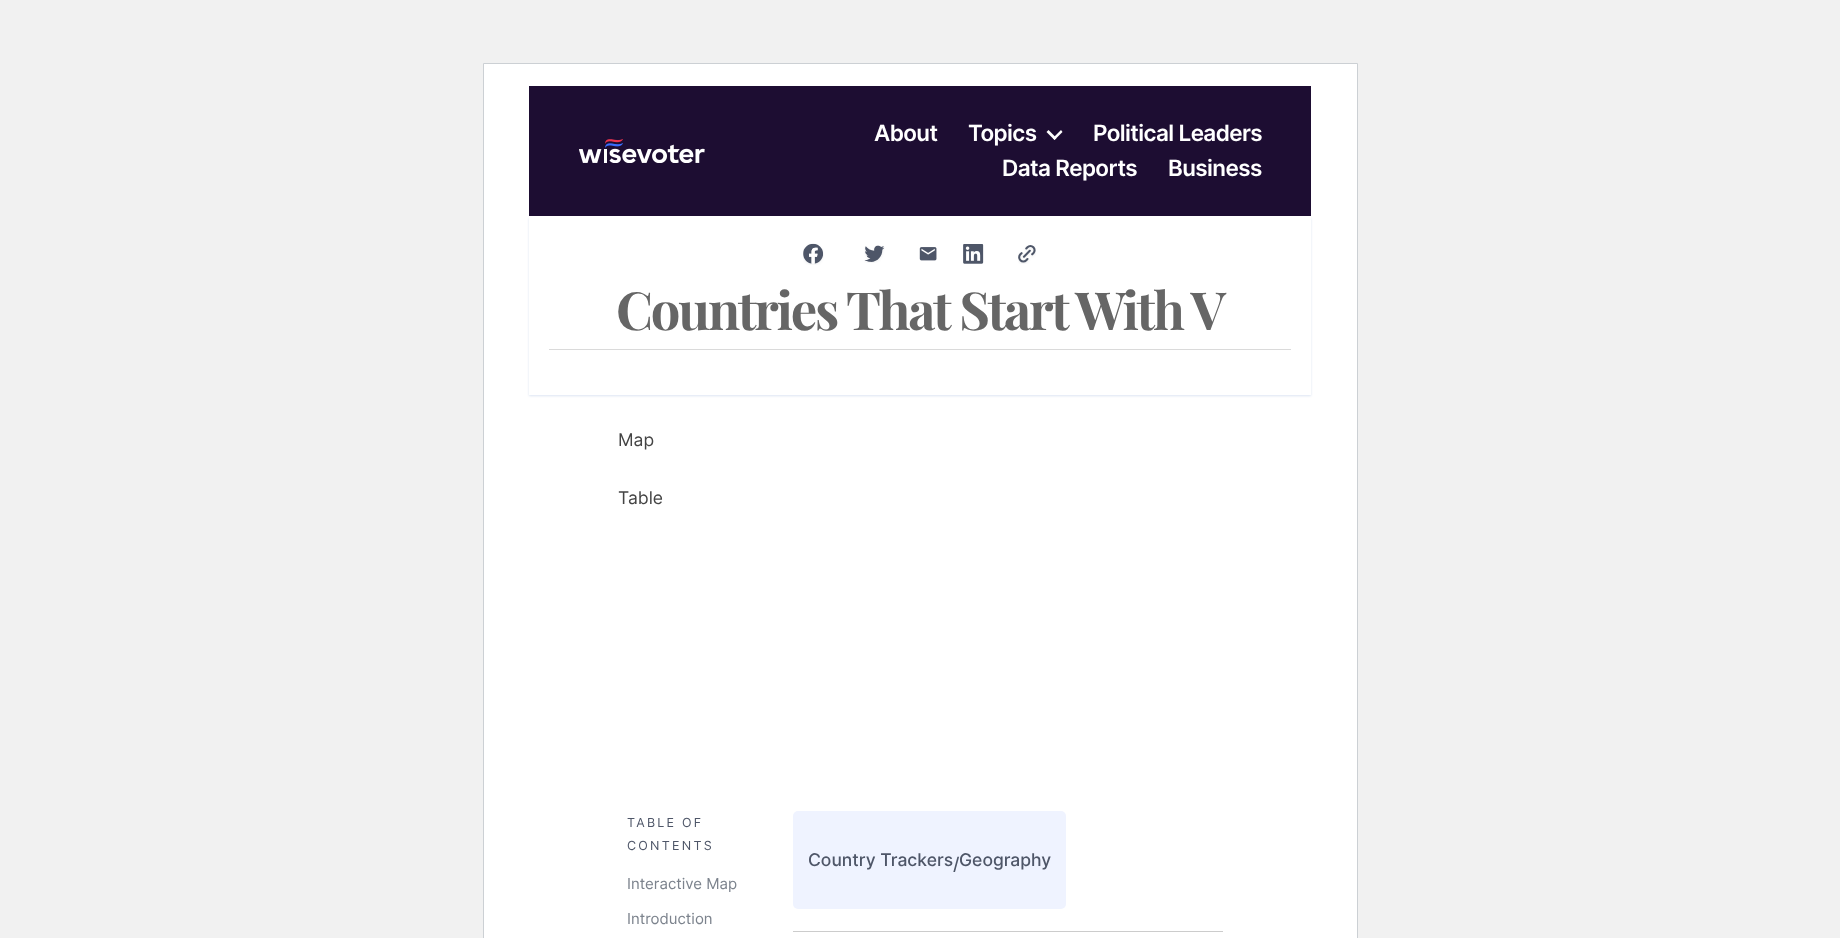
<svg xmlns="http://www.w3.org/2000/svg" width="1840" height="938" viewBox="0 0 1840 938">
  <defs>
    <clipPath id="clip1"><path d="M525 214H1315V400H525ZM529 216H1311V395H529Z" clip-rule="evenodd"/></clipPath>
  </defs>
  <rect width="100%" height="100%" fill="#f1f1f1"/>
  <path d="M483.5 63.5h874v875H483.5z" fill="#fff" stroke="#ccd0d4"/>
  <g clip-path="url(#clip1)">
    <path d="M529 218h782v178H529z" fill="#b9c9e580" filter="blur(1px)"/>
  </g>
  <path d="M529 86h782v130H529z" fill="#1d0d32"/>
  <image x="579" y="139" width="126" height="24" href="img/1.png"/>
  <path d="M1046.5 132L1048.5 130L1056.5 138L1054.5 140Z" fill="#fff"/>
  <path d="M1053 138L1061 130L1062.5 132L1054.5 140Z" fill="#fff"/>
  <image x="803" y="243" width="21" height="22" href="img/2.png"/>
  <image x="864" y="245" width="21" height="18" href="img/3.png"/>
  <image x="919" y="247" width="18" height="14" href="img/4.png"/>
  <image x="963" y="244" width="21" height="20" href="img/5.png"/>
  <image x="1018" y="245" width="18" height="19" href="img/6.png"/>
  <path d="M549 349h742v1H549z" fill="#dadada"/>
  <rect x="793" y="811" width="273" height="98" rx="5" fill="#eff3ff"/>
  <path d="M793 931h430v1H793z" fill="#ccc"/>
  <g font-family="Inter" font-size="22.5" font-weight="600" letter-spacing="-0.6" fill="#fff">
    <text x="874" y="141">About</text>
    <text x="968" y="141">Topics</text>
    <text x="1093" y="141">Political Leaders</text>
    <text x="1002" y="176">Data Reports</text>
    <text x="1168" y="176">Business</text>
  </g>
  <text x="616" y="330" font-family="Playfair Display" font-size="52.5" font-weight="bold" letter-spacing="-2.2" fill="#666">Countries That Start With V</text>
  <g font-family="Inter" font-size="17.5" fill="#444">
    <text x="618" y="446">Map</text>
    <text x="618" y="504">Table</text>
  </g>
  <g font-family="Inter" font-size="12.5" letter-spacing="2.25" fill="#4e5668">
    <text x="627" y="827">TABLE OF</text>
    <text x="627" y="850">CONTENTS</text>
  </g>
  <g font-family="Inter" font-size="15" fill="#7c838d">
    <text x="627" y="889">Interactive Map</text>
    <text x="627" y="924">Introduction</text>
  </g>
  <g font-family="Inter" font-size="17.5" font-weight="500" fill="#4e5668">
    <text x="808" y="866">Country Trackers</text>
    <text x="953" y="870">/</text>
    <text x="959" y="866">Geography</text>
  </g>
</svg>
